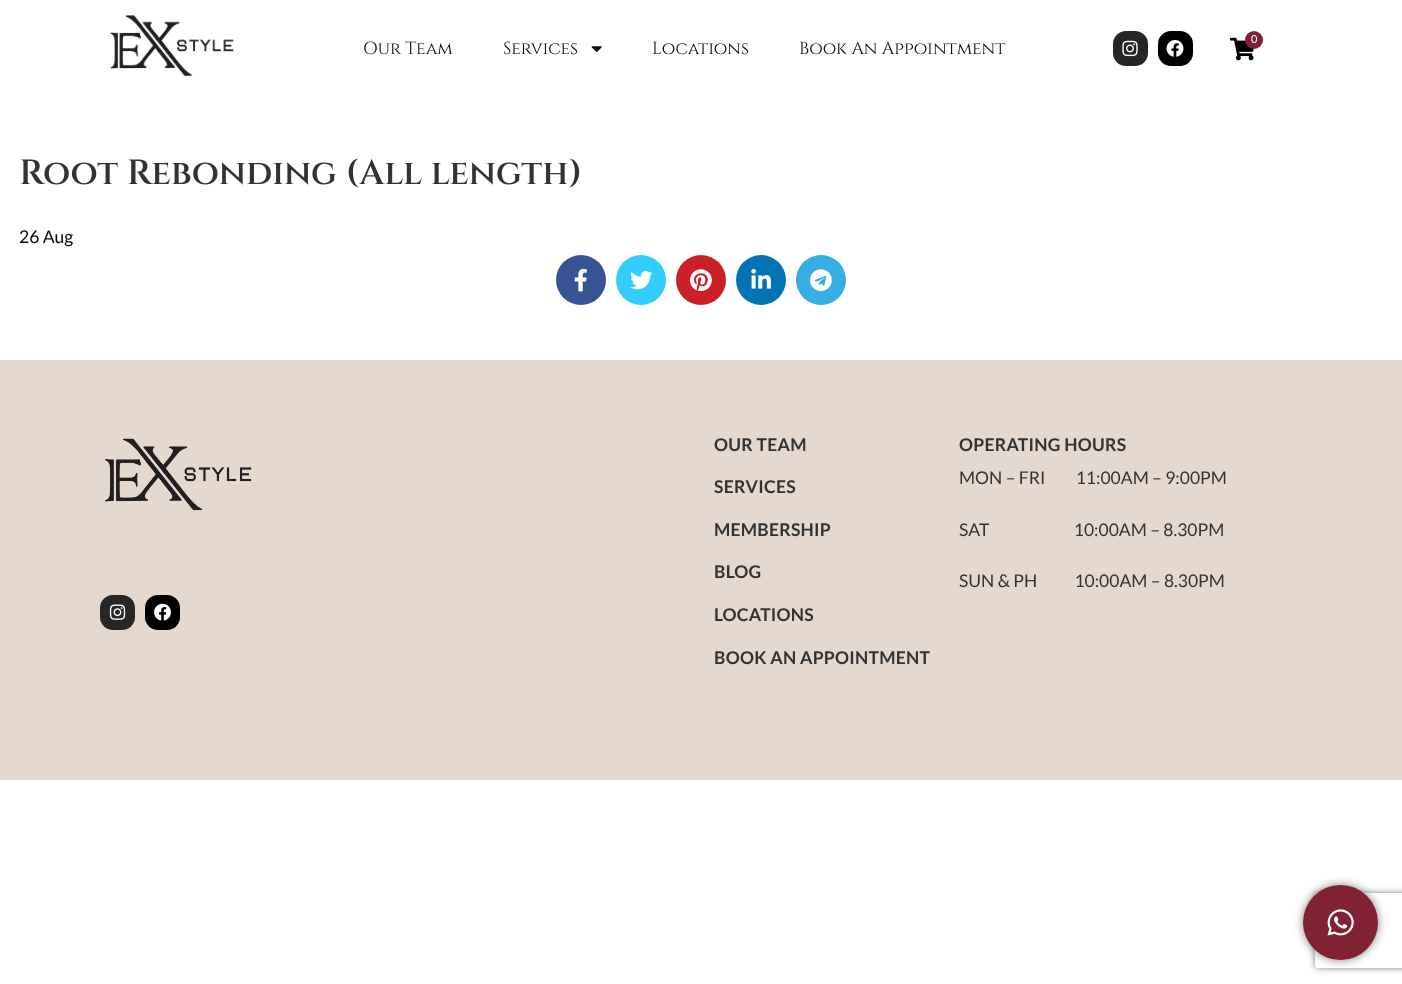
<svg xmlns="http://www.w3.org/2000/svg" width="1402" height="984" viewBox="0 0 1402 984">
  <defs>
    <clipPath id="clip1"><path d="M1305 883H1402V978H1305ZM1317.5 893H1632.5C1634 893 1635 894 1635 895.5V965.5C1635 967 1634 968 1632.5 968H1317.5C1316 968 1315 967 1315 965.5V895.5C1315 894 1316 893 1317.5 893Z" clip-rule="evenodd"/></clipPath>
  </defs>
  <rect width="100%" height="100%" fill="#fff"/>
  <image x="110" y="15" width="124" height="62" href="img/1.png"/>
  <rect x="1113" y="31" width="35" height="35" rx="13" fill="#262626"/>
  <image x="1122" y="40" width="16" height="17" href="img/2.png"/>
  <rect x="1158" y="31" width="35" height="35" rx="13" fill="#000"/>
  <image x="1166" y="40" width="18" height="17" href="img/3.png"/>
  <image x="1230" y="37" width="24" height="24" href="img/4.png"/>
  <circle cx="1254" cy="40" r="9" fill="#802232"/>
  <image x="591" y="46" width="11" height="6" href="img/5.png"/>
  <circle cx="581" cy="280" r="25" fill="#365493"/>
  <image x="574" y="268" width="13" height="24" href="img/6.png"/>
  <circle cx="641" cy="280" r="25" fill="#3cf"/>
  <image x="630" y="271" width="23" height="19" href="img/7.png"/>
  <circle cx="701" cy="280" r="25" fill="#cb2027"/>
  <image x="690" y="269" width="22" height="23" href="img/8.png"/>
  <circle cx="761" cy="280" r="25" fill="#0274b3"/>
  <image x="751" y="268" width="20" height="21" href="img/9.png"/>
  <circle cx="821" cy="280" r="25" fill="#37aee2"/>
  <image x="810" y="269" width="22" height="22" href="img/10.png"/>
  <path d="M0 360h1402v420H0z" fill="#e5d8cf"/>
  <image x="105" y="438" width="147" height="73" href="img/11.png"/>
  <rect x="100" y="595" width="35" height="35" rx="13" fill="#262626"/>
  <image x="109" y="604" width="17" height="16" href="img/12.png"/>
  <rect x="145" y="595" width="35" height="35" rx="13" fill="#000"/>
  <image x="154" y="603" width="17" height="18" href="img/13.png"/>
  <rect x="1303" y="885" width="75" height="75" rx="37.5" fill="#00000080" filter="blur(5px)"/>
  <g clip-path="url(#clip1)">
    <rect x="1315" y="893" width="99" height="75" rx="2.5" fill="#808080" filter="blur(3px)"/>
  </g>
  <circle cx="1340.5" cy="922.5" r="37.5" fill="#802232"/>
  <image x="1327" y="909" width="27" height="27" href="img/14.png"/>
  <text x="1251" y="43" font-family="Lato" font-size="11" fill="#fff">0</text>
  <g font-family="Cinzel" font-size="17.5" fill="#0a0a0a">
    <text x="363" y="54">Our Team</text>
    <text x="503" y="54">Services</text>
    <text x="652" y="54">Locations</text>
    <text x="799" y="54">Book An Appointment</text>
  </g>
  <text x="19" y="184" font-family="Cinzel" font-size="35" font-weight="600" fill="#333">Root Rebonding (All length)</text>
  <text x="19" y="243" font-family="Lato" font-size="17.5" fill="#0a0a0a">26 Aug</text>
  <g font-family="Lato" font-size="17.5" font-weight="bold" letter-spacing="0.25" fill="#333">
    <text x="714" y="451">OUR TEAM</text>
    <text x="714" y="493">SERVICES</text>
    <text x="714" y="536">MEMBERSHIP</text>
    <text x="714" y="578">BLOG</text>
    <text x="714" y="621">LOCATIONS</text>
    <text x="714" y="664">BOOK AN APPOINTMENT</text>
    <text x="959" y="451">OPERATING HOURS</text>
  </g>
  <g font-family="Lato" font-size="17.5" fill="#333">
    <text x="959" y="484" xml:space="preserve">MON – FRI         11:00AM – 9:00PM</text>
    <text x="959" y="536" xml:space="preserve">SAT                         10:00AM – 8.30PM</text>
    <text x="959" y="587" xml:space="preserve">SUN &amp; PH           10:00AM – 8.30PM</text>
  </g>
</svg>
